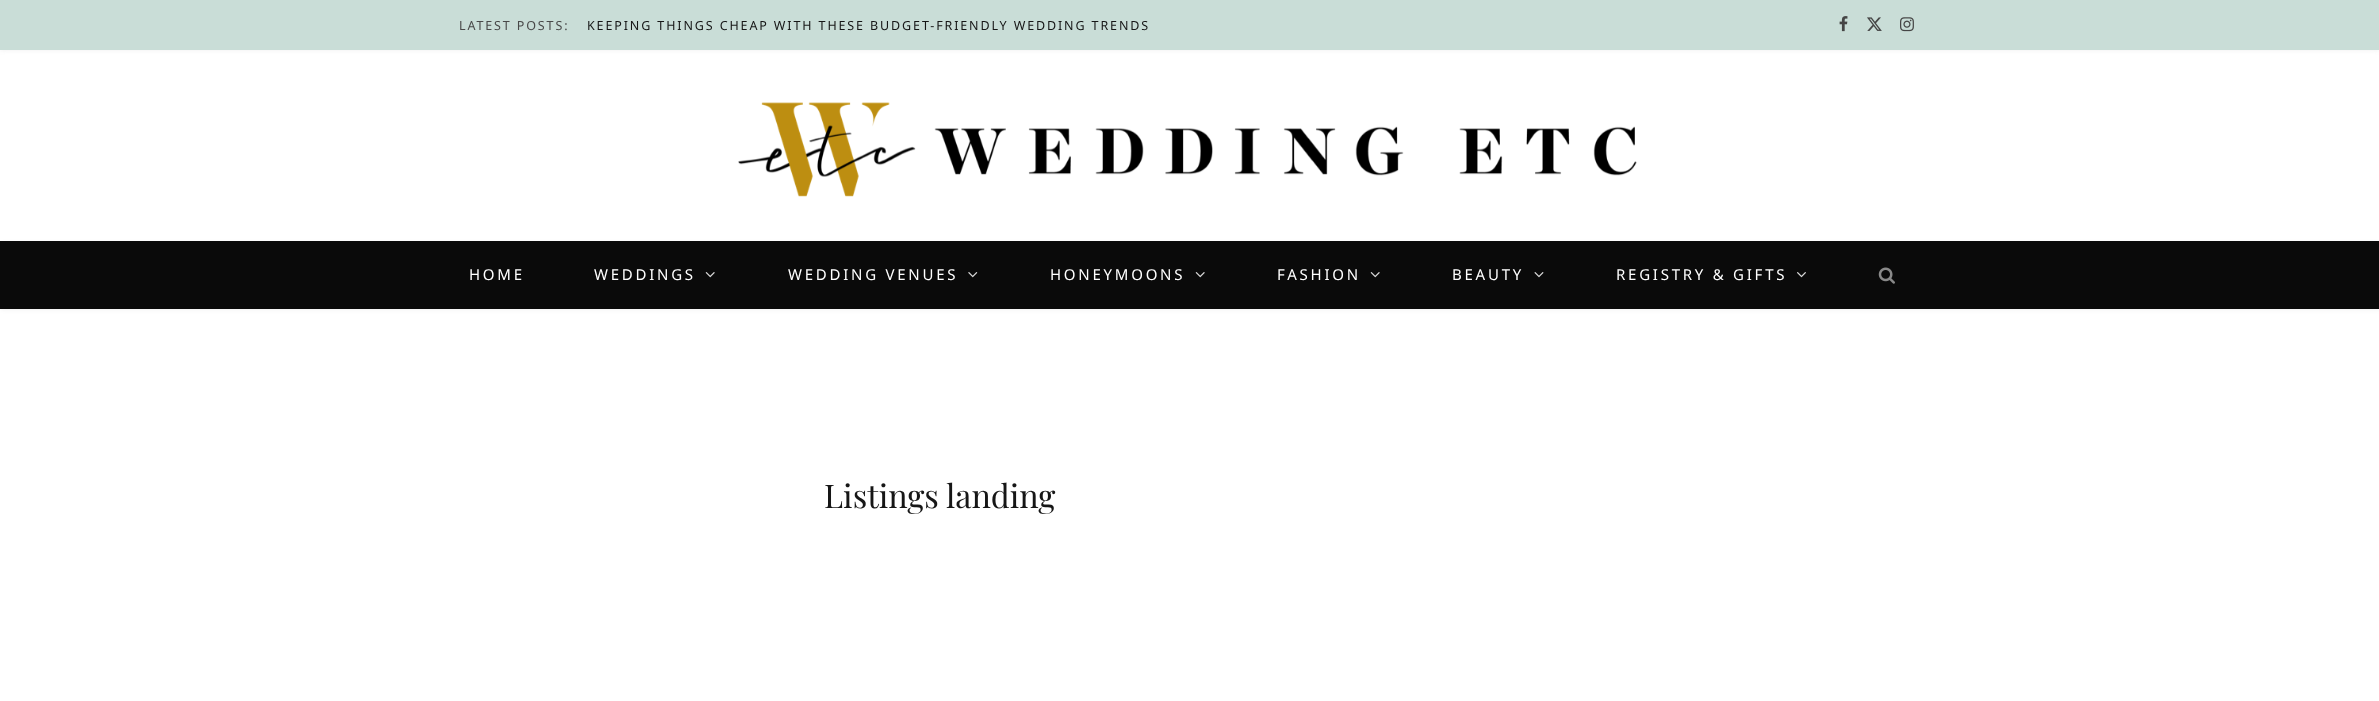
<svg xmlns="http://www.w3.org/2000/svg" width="2379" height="701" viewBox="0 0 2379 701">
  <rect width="100%" height="100%" fill="#fff"/>
  <path d="M0 0h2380v50H0z" fill="#eee" filter="blur(2.5px)"/>
  <path d="M0 0h2379v50H0z" fill="#c9ddd7"/>
  <image x="1839" y="16" width="9" height="16" href="img/1.png"/>
  <image x="1867" y="17" width="15" height="14" href="img/2.png"/>
  <image x="1900" y="17" width="14" height="15" href="img/3.png"/>
  <image x="738" y="102" width="899" height="95" href="img/4.png"/>
  <path d="M1 243h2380v67H1z" fill="#0000000d" filter="blur(2px)"/>
  <path d="M0 241h2379v68H0z" fill="#0a0a0a"/>
  <image x="705" y="272" width="10" height="6" href="img/5.png"/>
  <image x="968" y="272" width="10" height="6" href="img/6.png"/>
  <image x="1195" y="272" width="10" height="6" href="img/5.png"/>
  <image x="1370" y="272" width="10" height="6" href="img/5.png"/>
  <image x="1534" y="272" width="10" height="6" href="img/7.png"/>
  <image x="1797" y="272" width="9" height="6" href="img/8.png"/>
  <image x="1878" y="267" width="17" height="17" href="img/9.png"/>
  <text x="459" y="30" font-family="Noto Sans" font-size="12.5" letter-spacing="1.88" fill="#494949">LATEST POSTS:</text>
  <text x="587" y="30" font-family="Noto Sans" font-size="12.5" letter-spacing="1.88" fill="#161616">KEEPING THINGS CHEAP WITH THESE BUDGET-FRIENDLY WEDDING TRENDS</text>
  <g font-family="Noto Sans" font-size="15" letter-spacing="2.75" fill="#fff">
    <text x="469" y="280">HOME</text>
    <text x="594" y="280">WEDDINGS</text>
    <text x="788" y="280">WEDDING VENUES</text>
    <text x="1050" y="280">HONEYMOONS</text>
    <text x="1277" y="280">FASHION</text>
    <text x="1452" y="280">BEAUTY</text>
    <text x="1616" y="280">REGISTRY &amp; GIFTS</text>
  </g>
  <text x="824" y="508" font-family="Playfair Display" font-size="32.5" fill="#161616">Listings landing</text>
</svg>
